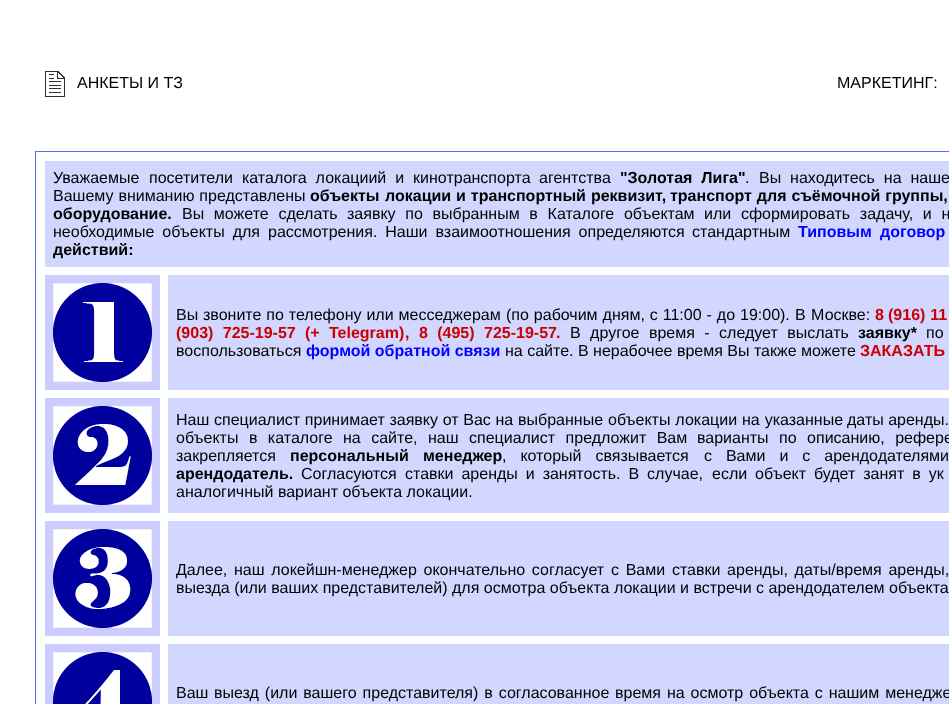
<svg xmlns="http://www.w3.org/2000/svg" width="949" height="704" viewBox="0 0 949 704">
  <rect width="100%" height="100%" fill="#fff"/>
  <image x="45" y="71" width="20" height="26" href="img/1.png"/>
  <path d="M35 151h914v553H35z" fill="#5568ff"/>
  <path d="M36 152h913v552H36z" fill="#fff"/>
  <path d="M45 161h904v106H45z" fill="#d2d7ff"/>
  <path d="M45 275h115v115H45z" fill="#ccf"/>
  <image x="53" y="283" width="99" height="99" href="img/2.png"/>
  <path d="M168 275h781v115H168z" fill="#d2d7ff"/>
  <path d="M45 398h115v115H45z" fill="#ccf"/>
  <image x="53" y="406" width="99" height="99" href="img/3.png"/>
  <path d="M168 398h781v115H168z" fill="#d2d7ff"/>
  <path d="M45 521h115v115H45z" fill="#ccf"/>
  <image x="53" y="529" width="99" height="99" href="img/4.png"/>
  <path d="M168 521h781v115H168z" fill="#d2d7ff"/>
  <path d="M45 644h115v60H45z" fill="#ccf"/>
  <image x="53" y="652" width="99" height="52" href="img/5.png"/>
  <path d="M168 644h781v60H168z" fill="#d2d7ff"/>
  <g font-family="Liberation Sans" font-size="16" fill="#000">
    <text x="77" y="88">АНКЕТЫ И ТЗ</text>
    <text x="837" y="88">МАРКЕТИНГ:</text>
    <text x="53" y="183">Уважаемые</text>
    <text x="149" y="183" word-spacing="4.5">посетители каталога локациий и кинотранспорта</text>
    <text x="539" y="183">агентства</text>
  </g>
  <text x="620" y="183" word-spacing="4.5" font-family="Liberation Sans" font-size="16" font-weight="bold" fill="#000">"Золотая Лига"</text>
  <g font-family="Liberation Sans" font-size="16" fill="#000">
    <text x="745" y="183">.</text>
    <text x="759" y="183" word-spacing="4.5">Вы находитесь на наше</text>
    <text x="53" y="201" word-spacing="0.5">Вашему вниманию представлены</text>
  </g>
  <g font-family="Liberation Sans" font-size="16" font-weight="bold" fill="#000">
    <text x="310" y="201">объекты</text>
    <text x="385" y="201" word-spacing="0.5">локации и транспортный реквизит,</text>
    <text x="670" y="201" word-spacing="0.5">транспорт для съёмочной группы,</text>
    <text x="53" y="219">оборудование.</text>
  </g>
  <g font-family="Liberation Sans" font-size="16" fill="#000">
    <text x="182" y="219" word-spacing="5.25">Вы можете сделать</text>
    <text x="347" y="219" word-spacing="5.25">заявку по выбранным в Каталоге объектам</text>
    <text x="704" y="219" word-spacing="5.25">или сформировать задачу, и н</text>
    <text x="53" y="237" word-spacing="3.5">необходимые объекты для</text>
    <text x="268" y="237" word-spacing="3.5">рассмотрения. Наши взаимоотношения определяются</text>
    <text x="692" y="237">стандартным</text>
  </g>
  <g font-family="Liberation Sans" font-size="16" font-weight="bold" fill="#00f">
    <text x="798" y="237">Типовым</text>
    <text x="880" y="237">договор</text>
  </g>
  <text x="53" y="255" font-family="Liberation Sans" font-size="16" font-weight="bold" fill="#000">действий:</text>
  <g font-family="Liberation Sans" font-size="16" fill="#000">
    <text x="176" y="320">Вы</text>
    <text x="203" y="320" word-spacing="0.5">звоните по телефону или месседжерам</text>
    <text x="506" y="320" word-spacing="0.5">(по рабочим дням, с 11:00 - до 19:00).</text>
    <text x="795" y="320" word-spacing="1">В Москве:</text>
  </g>
  <g font-family="Liberation Sans" font-size="16" font-weight="bold" fill="#c00">
    <text x="875" y="320">8</text>
    <text x="888" y="320" word-spacing="0.5">(916) 11</text>
    <text x="176" y="338" word-spacing="5">(903) 725-19-57</text>
    <text x="305" y="338">(+</text>
    <text x="329" y="338">Telegram)</text>
    <text x="405" y="338" word-spacing="5">, 8 (495) 725-19-57</text>
    <text x="556" y="338">.</text>
  </g>
  <text x="570" y="338" word-spacing="5" font-family="Liberation Sans" font-size="16" fill="#000">В другое время - следует выслать</text>
  <text x="858" y="338" font-family="Liberation Sans" font-size="16" font-weight="bold" fill="#000">заявку*</text>
  <g font-family="Liberation Sans" font-size="16" fill="#000">
    <text x="926" y="338" word-spacing="5">по</text>
    <text x="176" y="356">воспользоваться</text>
  </g>
  <text x="306" y="356" font-family="Liberation Sans" font-size="16" font-weight="bold" fill="#00f">формой обратной связи</text>
  <text x="505" y="356" font-family="Liberation Sans" font-size="16" fill="#000">на сайте. В нерабочее время Вы также можете</text>
  <text x="860" y="356" font-family="Liberation Sans" font-size="16" font-weight="bold" fill="#c00">ЗАКАЗАТЬ</text>
  <g font-family="Liberation Sans" font-size="16" fill="#000">
    <text x="176" y="425">Наш</text>
    <text x="214" y="425" word-spacing="0.25">специалист принимает заявку от Вас на</text>
    <text x="518" y="425" word-spacing="0.5">выбранные объекты локации на указанные</text>
    <text x="847" y="425">даты аренды.</text>
    <text x="176" y="443" word-spacing="6">объекты в каталоге</text>
    <text x="343" y="443" word-spacing="6">на сайте, наш специалист предложит Вам</text>
    <text x="697" y="443" word-spacing="6">варианты по описанию, рефере</text>
    <text x="176" y="461">закрепляется</text>
  </g>
  <g font-family="Liberation Sans" font-size="16" font-weight="bold" fill="#000">
    <text x="290" y="461">персональный</text>
    <text x="423" y="461">менеджер</text>
  </g>
  <g font-family="Liberation Sans" font-size="16" fill="#000">
    <text x="502" y="461" word-spacing="9.5">, который связывается</text>
    <text x="704" y="461" word-spacing="9.5">с Вами и с арендодателями</text>
  </g>
  <text x="176" y="479" font-family="Liberation Sans" font-size="16" font-weight="bold" fill="#000">арендодатель.</text>
  <g font-family="Liberation Sans" font-size="16" fill="#000">
    <text x="301" y="479">Согласуются</text>
    <text x="405" y="479" word-spacing="3.5">ставки аренды и занятость. В случае,</text>
    <text x="712" y="479" word-spacing="3.5">если объект будет занят в ук</text>
    <text x="176" y="497">аналогичный вариант объекта локации.</text>
    <text x="176" y="575">Далее,</text>
    <text x="234" y="575" word-spacing="2.25">наш локейшн-менеджер окончательно согласует</text>
    <text x="611" y="575" word-spacing="2.25">с Вами ставки аренды, даты/время аренды,</text>
    <text x="176" y="593">выезда (или ваших представителей) для осмотра объекта локации и встречи с арендодателем объекта</text>
    <text x="176" y="698">Ваш</text>
    <text x="214" y="698" word-spacing="1.5">выезд (или вашего представителя) в согласованное</text>
    <text x="615" y="698" word-spacing="1.5">время на осмотр объекта с нашим менедже</text>
  </g>
</svg>
